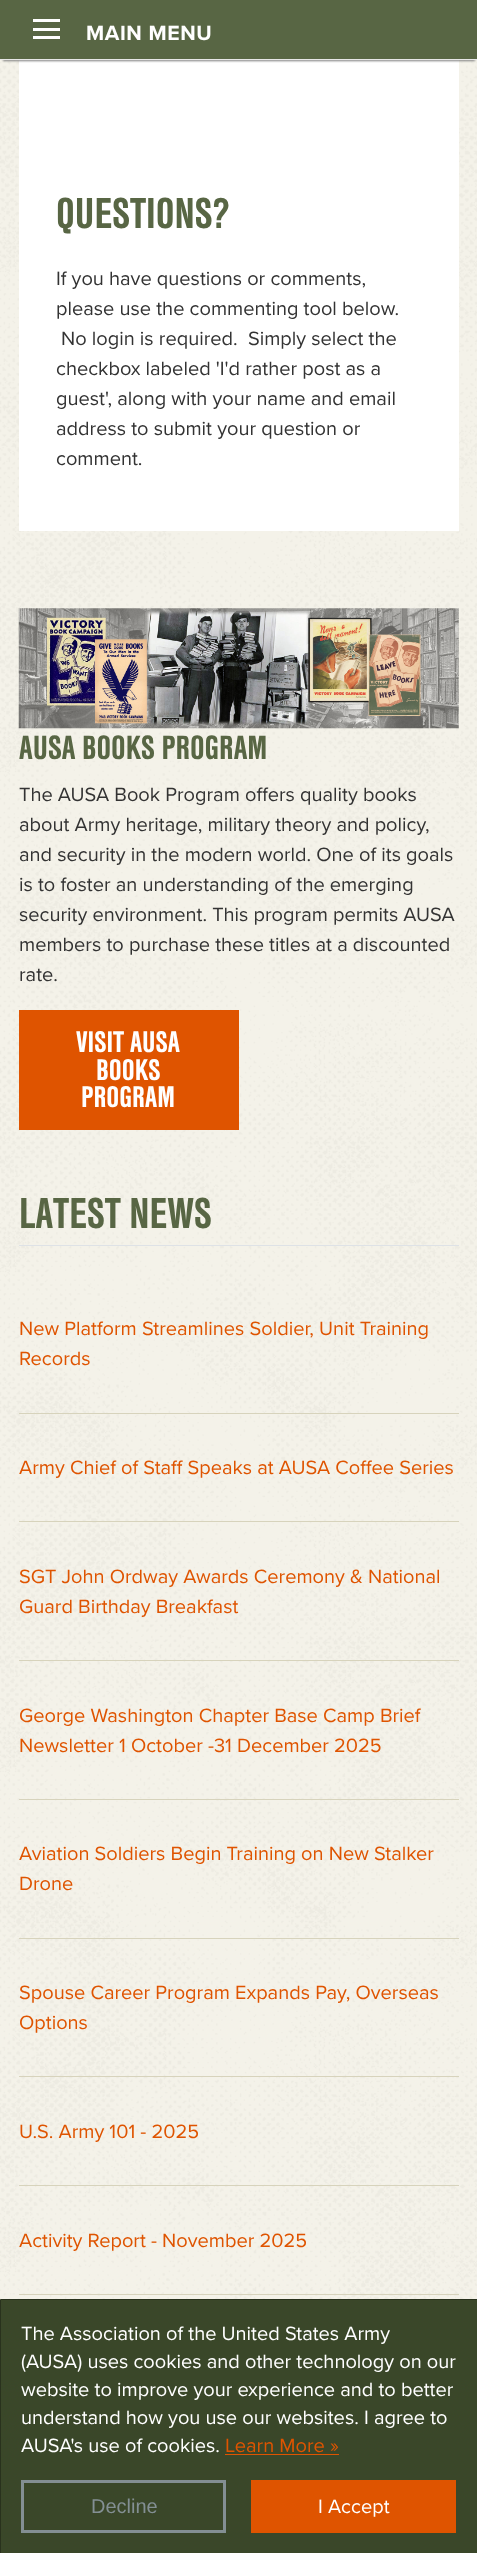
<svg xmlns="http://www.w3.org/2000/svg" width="477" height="2553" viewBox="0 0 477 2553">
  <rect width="100%" height="100%" fill="#fff"/>
  <image x="0" y="60" width="477" height="2239" href="img/1.png"/>
  <path d="M19 60h440v471H19z" fill="#fff"/>
  <path d="M3 6h472v55H3z" fill="#808080" filter="blur(1px)"/>
  <path d="M0 0h477v59H0z" fill="#586644"/>
  <path d="M33 19h27v3H33z" fill="#fff"/>
  <path d="M33 28h27v3H33z" fill="#fff"/>
  <path d="M33 36h27v3H33z" fill="#fff"/>
  <path d="M0 59h477v1H0z" fill="#e7e7e7"/>
  <image x="18" y="608" width="441" height="121" href="img/2.png"/>
  <path d="M19 1010h220v120H19z" fill="#df5400"/>
  <path d="M19 1245h440v1H19z" fill="#dee2e6"/>
  <path d="M19 1413h440v1H19z" fill="#d7d3bc"/>
  <path d="M19 1521h440v1H19z" fill="#d7d3bc"/>
  <path d="M19 1660h440v1H19z" fill="#d7d3bc"/>
  <path d="M19 1799h440v1H19z" fill="#d7d3bc"/>
  <path d="M19 1938h440v1H19z" fill="#d7d3bc"/>
  <path d="M19 2076h440v1H19z" fill="#d7d3bc"/>
  <path d="M19 2185h440v1H19z" fill="#d7d3bc"/>
  <path d="M19 2294h440v1H19z" fill="#d7d3bc"/>
  <path d="M0.5 2299.5h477v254H0.5z" fill="#3a4729" stroke="#29321d"/>
  <path d="M225 2454h114v1H225z" fill="#df5400"/>
  <path d="M22.5 2481.5h202v50H22.5z" fill="none" stroke="#838f93" stroke-width="3"/>
  <path d="M251 2480h205v53H251z" fill="#df5400"/>
  <text x="86" y="40" font-family="Proxima Nova" font-size="21.25" font-weight="bold" letter-spacing="0.6" fill="#fff">MAIN MENU</text>
  <text x="56" y="228" font-family="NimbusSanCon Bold" font-size="45" font-weight="bold" fill="#586644">QUESTIONS?</text>
  <g font-family="Proxima Nova" font-size="20" fill="#333">
    <text x="56" y="285">If you have questions or comments,</text>
    <text x="56" y="315">please use the commenting tool below.</text>
    <text x="61" y="345" xml:space="preserve">No login is required.  Simply select the</text>
    <text x="56" y="375">checkbox labeled 'I'd rather post as a</text>
    <text x="56" y="405">guest', along with your name and email</text>
    <text x="56" y="435">address to submit your question or</text>
    <text x="56" y="465">comment.</text>
  </g>
  <text x="19" y="759" font-family="NimbusSanCon Bold" font-size="35" font-weight="bold" fill="#586644">AUSA BOOKS PROGRAM</text>
  <g font-family="Proxima Nova" font-size="20" fill="#333">
    <text x="19" y="801">The AUSA Book Program offers quality books</text>
    <text x="19" y="831">about Army heritage, military theory and policy,</text>
    <text x="19" y="861">and security in the modern world. One of its goals</text>
    <text x="19" y="891">is to foster an understanding of the emerging</text>
    <text x="19" y="921">security environment. This program permits AUSA</text>
    <text x="19" y="951">members to purchase these titles at a discounted</text>
    <text x="19" y="981">rate.</text>
  </g>
  <g font-family="NimbusSanCon Bold" font-size="31" font-weight="bold" fill="#fff">
    <text x="76" y="1052">VISIT AUSA</text>
    <text x="96" y="1080">BOOKS</text>
    <text x="81" y="1107">PROGRAM</text>
  </g>
  <text x="19" y="1228" font-family="NimbusSanCon Bold" font-size="45" font-weight="bold" fill="#586644">LATEST NEWS</text>
  <g font-family="Proxima Nova" font-size="20" fill="#df5400">
    <text x="19" y="1335">New Platform Streamlines Soldier, Unit Training</text>
    <text x="19" y="1365">Records</text>
    <text x="19" y="1474">Army Chief of Staff Speaks at AUSA Coffee Series</text>
    <text x="19" y="1583">SGT John Ordway Awards Ceremony &amp; National</text>
    <text x="19" y="1613">Guard Birthday Breakfast</text>
    <text x="19" y="1722">George Washington Chapter Base Camp Brief</text>
    <text x="19" y="1752">Newsletter 1 October -31 December 2025</text>
    <text x="19" y="1860">Aviation Soldiers Begin Training on New Stalker</text>
    <text x="19" y="1890">Drone</text>
    <text x="19" y="1999">Spouse Career Program Expands Pay, Overseas</text>
    <text x="19" y="2029">Options</text>
    <text x="19" y="2138">U.S. Army 101 - 2025</text>
    <text x="19" y="2247">Activity Report - November 2025</text>
  </g>
  <g font-family="Proxima Nova" font-size="20" fill="#fff">
    <text x="21" y="2340">The Association of the United States Army</text>
    <text x="21" y="2368">(AUSA) uses cookies and other technology on our</text>
    <text x="21" y="2396">website to improve your experience and to better</text>
    <text x="21" y="2424">understand how you use our websites. I agree to</text>
    <text x="21" y="2452">AUSA's use of cookies.</text>
  </g>
  <text x="225" y="2452" font-family="Proxima Nova" font-size="20" fill="#df5400">Learn More »</text>
  <text x="91" y="2513" font-family="Liberation Sans" font-size="20" fill="#838f93">Decline</text>
  <text x="318" y="2513" font-family="Proxima Nova" font-size="20" fill="#fff">I Accept</text>
</svg>
